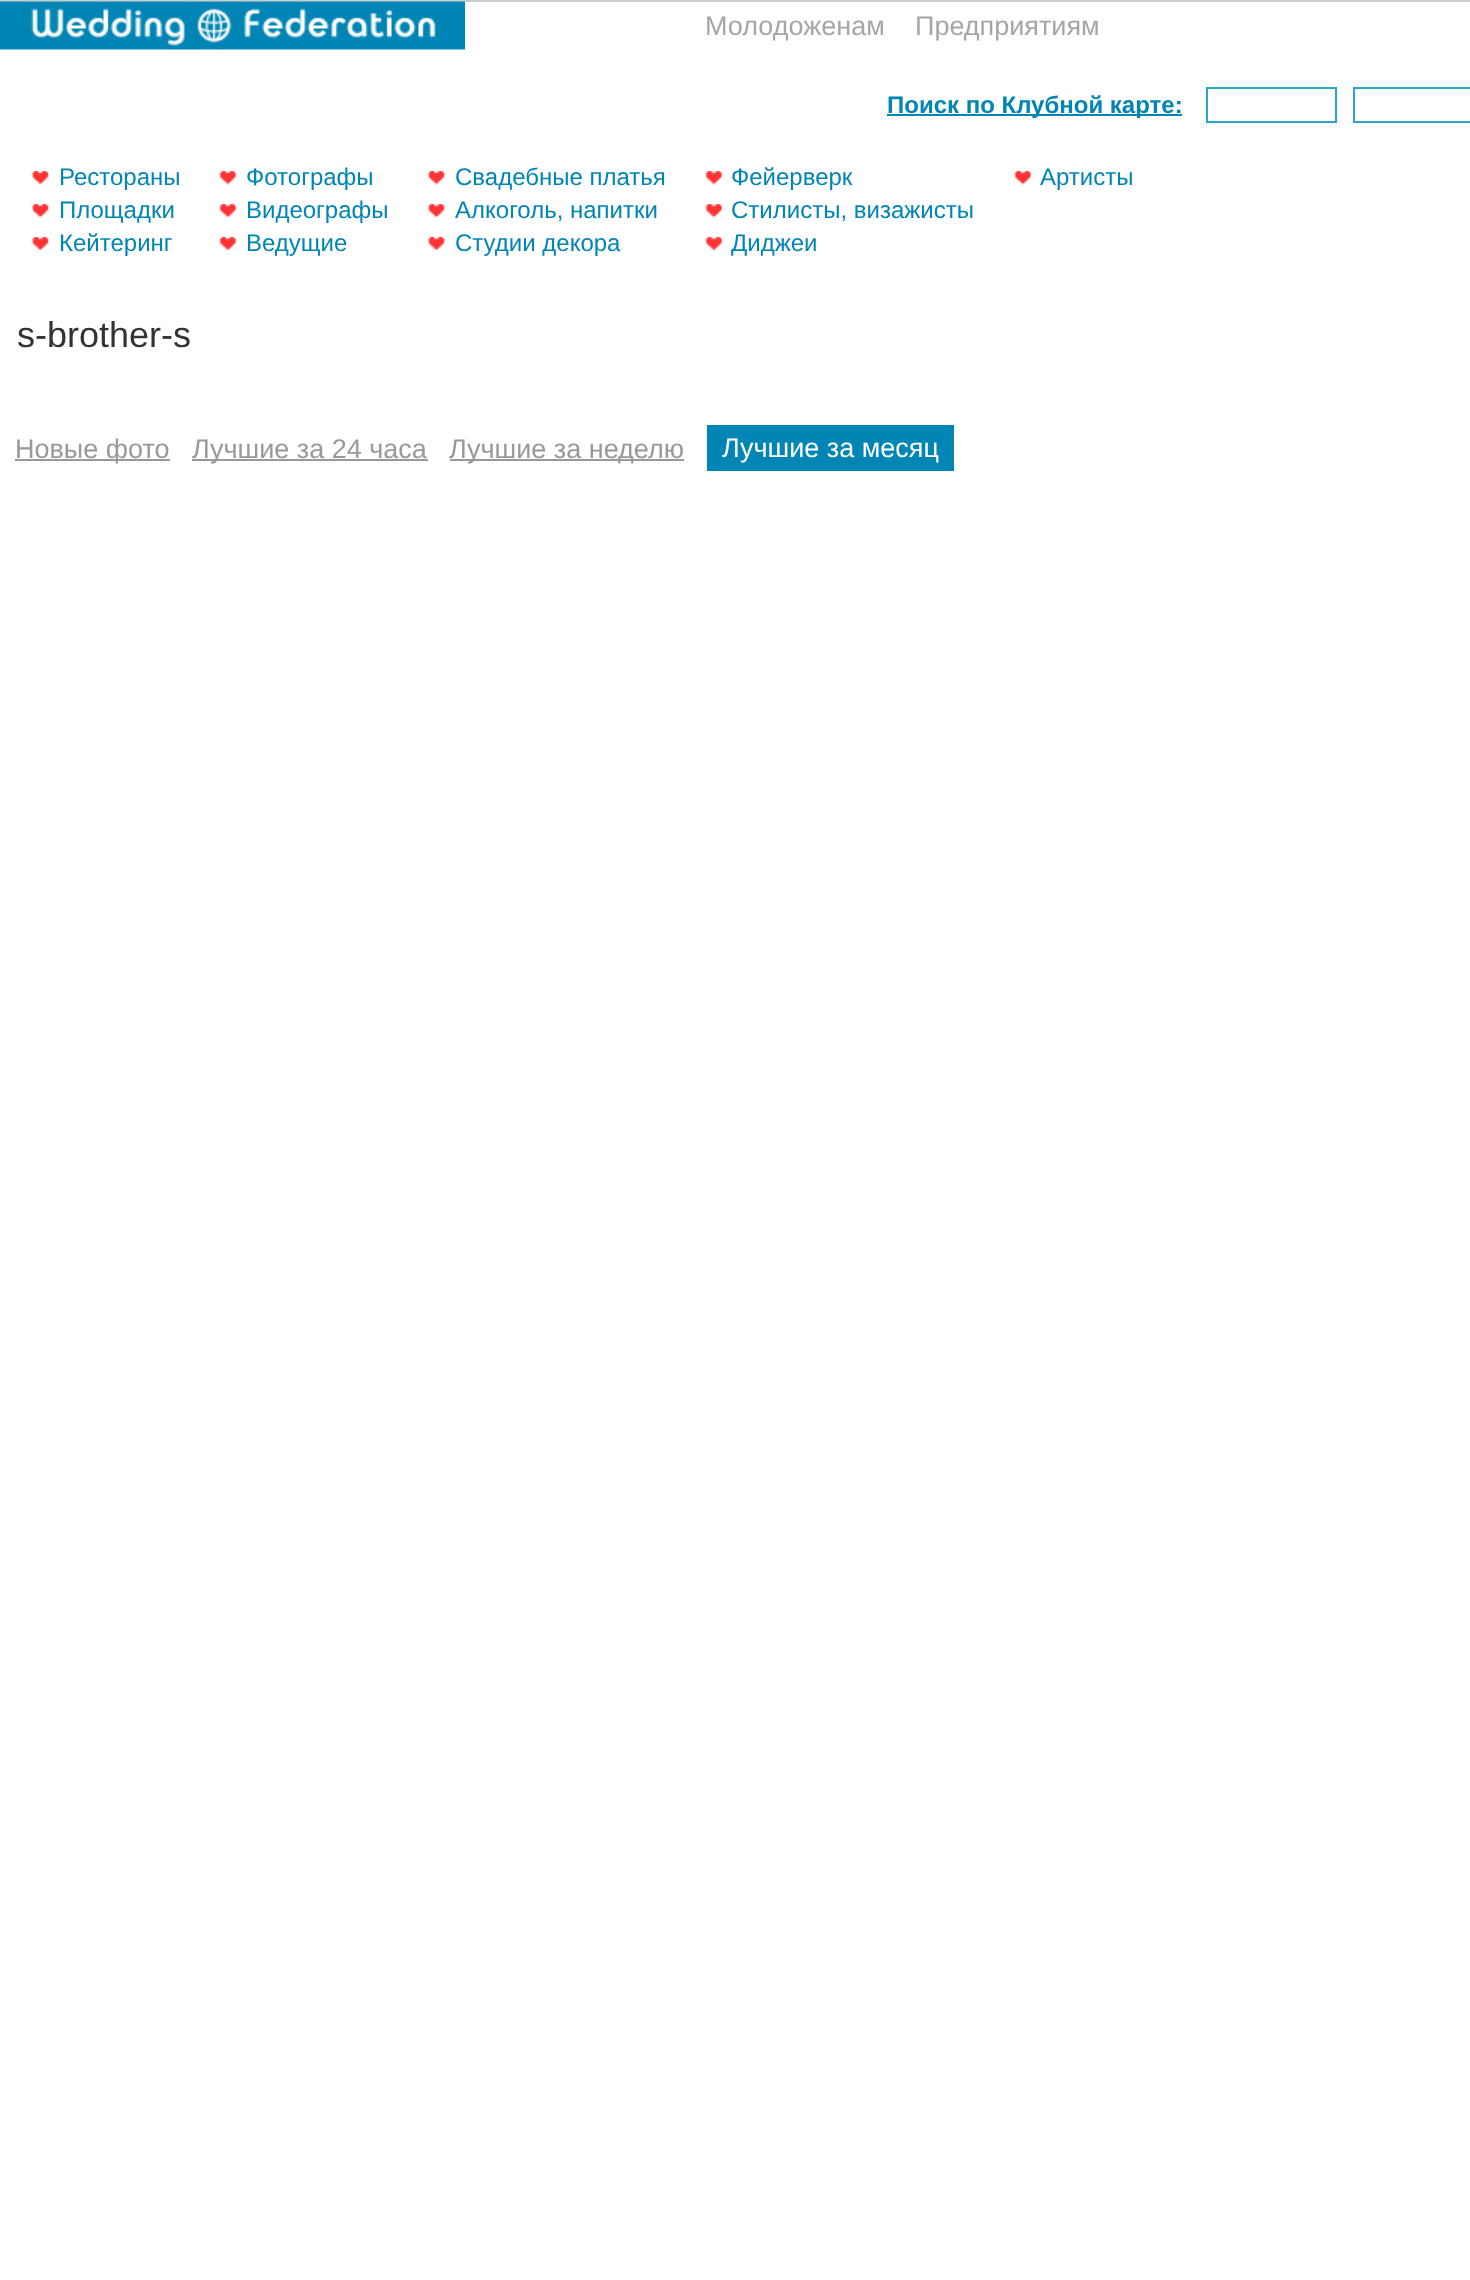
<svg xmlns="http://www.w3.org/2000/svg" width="1470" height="2280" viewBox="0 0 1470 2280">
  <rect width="100%" height="100%" fill="#fff"/>
  <path d="M0 0h1470v2H0z" fill="#ccc"/>
  <image x="0" y="1" width="465" height="49" href="img/1.png"/>
  <path d="M887 114h295v2H887z" fill="#0085b5"/>
  <path d="M1207 88h129v34H1207z" fill="none" stroke="#2ba4cf" stroke-width="2"/>
  <path d="M1354 88h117v34H1354z" fill="none" stroke="#2ba4cf" stroke-width="2"/>
  <image x="31" y="171" width="19" height="14" href="img/2.png"/>
  <image x="31" y="204" width="19" height="14" href="img/2.png"/>
  <image x="31" y="237" width="19" height="14" href="img/2.png"/>
  <image x="219" y="171" width="18" height="14" href="img/3.png"/>
  <image x="219" y="204" width="18" height="14" href="img/3.png"/>
  <image x="219" y="237" width="18" height="14" href="img/3.png"/>
  <image x="427" y="171" width="19" height="14" href="img/4.png"/>
  <image x="427" y="204" width="19" height="14" href="img/4.png"/>
  <image x="427" y="237" width="19" height="14" href="img/4.png"/>
  <image x="705" y="171" width="18" height="14" href="img/5.png"/>
  <image x="705" y="204" width="18" height="14" href="img/5.png"/>
  <image x="705" y="237" width="18" height="14" href="img/5.png"/>
  <image x="1014" y="171" width="18" height="14" href="img/3.png"/>
  <path d="M15 459h155v2H15z" fill="#999"/>
  <path d="M192 459h236v2H192z" fill="#999"/>
  <path d="M450 459h234v2H450z" fill="#999"/>
  <path d="M707 425h247v46H707z" fill="#0085b5"/>
  <g font-family="Liberation Sans" font-size="27" fill="#a6a6a6">
    <text x="705" y="35">Молодоженам</text>
    <text x="915" y="35">Предприятиям</text>
  </g>
  <text x="887" y="113" font-family="Liberation Sans" font-size="24" font-weight="bold" fill="#0085b5">Поиск по Клубной карте:</text>
  <g font-family="Liberation Sans" font-size="24" fill="#0085b5">
    <text x="59" y="185">Рестораны</text>
    <text x="59" y="218">Площадки</text>
    <text x="59" y="251">Кейтеринг</text>
    <text x="246" y="185">Фотографы</text>
    <text x="246" y="218">Видеографы</text>
    <text x="246" y="251">Ведущие</text>
    <text x="455" y="185">Свадебные платья</text>
    <text x="455" y="218">Алкоголь, напитки</text>
    <text x="455" y="251">Студии декора</text>
    <text x="731" y="185">Фейерверк</text>
    <text x="731" y="218">Стилисты, визажисты</text>
    <text x="731" y="251">Диджеи</text>
    <text x="1040" y="185">Артисты</text>
  </g>
  <text x="17" y="347" font-family="Liberation Sans" font-size="36" fill="#333">s-brother-s</text>
  <g font-family="Liberation Sans" font-size="27" fill="#999">
    <text x="15" y="458">Новые фото</text>
    <text x="192" y="458">Лучшие за 24 часа</text>
    <text x="449" y="458">Лучшие за неделю</text>
  </g>
  <text x="722" y="457" font-family="Liberation Sans" font-size="27" fill="#fff">Лучшие за месяц</text>
</svg>
